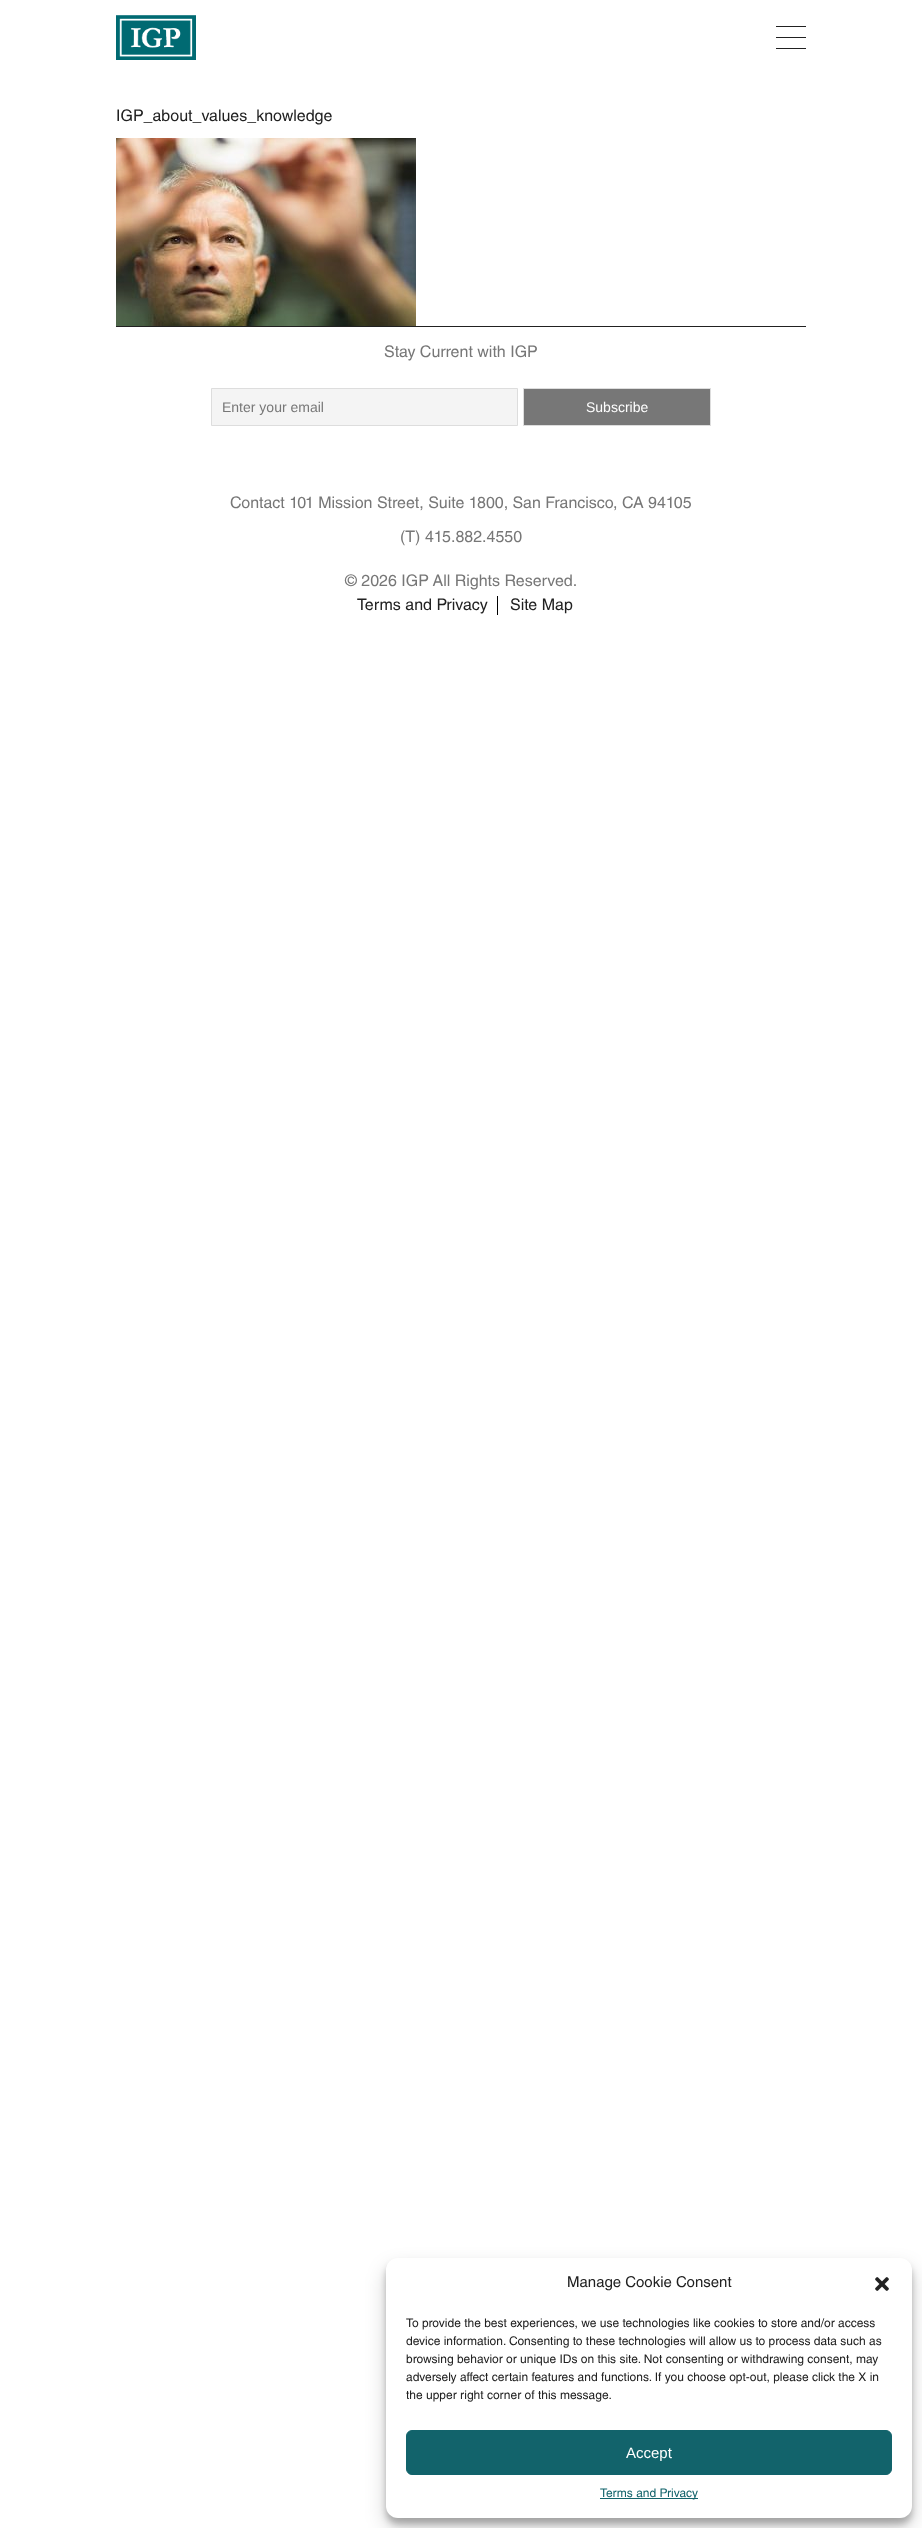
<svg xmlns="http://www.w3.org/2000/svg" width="922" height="2528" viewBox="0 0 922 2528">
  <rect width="100%" height="100%" fill="#fff"/>
  <image x="116" y="15" width="80" height="45" href="img/1.png"/>
  <path d="M776 26h30v1H776z" fill="#212121"/>
  <path d="M776 37h30v1H776z" fill="#212121"/>
  <path d="M776 48h30v1H776z" fill="#212121"/>
  <image x="116" y="138" width="300" height="188" href="img/2.png"/>
  <path d="M116 326h690v1H116z" fill="#212121"/>
  <path d="M211.5 388.5h306v37H211.5z" fill="#f4f4f4" stroke="#ddd"/>
  <path d="M523.5 388.5h187v37H523.5z" fill="#777" stroke="#ddd"/>
  <path d="M497 596h1v19H497z" fill="#000"/>
  <rect x="386" y="2264" width="526" height="260" rx="12" fill="#0000003b" filter="blur(3px)"/>
  <rect x="386" y="2268" width="526" height="260" rx="12" fill="#00000030" filter="blur(10px)"/>
  <rect x="386" y="2258" width="526" height="260" rx="12" fill="#fff"/>
  <image x="875" y="2277" width="14" height="14" href="img/3.png"/>
  <rect x="406.5" y="2430.5" width="485" height="44" rx="5.5" fill="#12636b" stroke="#12636b"/>
  <path d="M600 2498h98v1H600z" fill="#12636b"/>
  <text x="116" y="121" font-family="Helvetica" font-size="16" fill="#212121">IGP_about_values_knowledge</text>
  <text x="384" y="357" font-family="Helvetica" font-size="16" fill="#777">Stay Current with IGP</text>
  <text x="222" y="412" font-family="Liberation Sans" font-size="14" fill="#777">Enter your email</text>
  <text x="586" y="412" font-family="Liberation Sans" font-size="14" fill="#fff">Subscribe</text>
  <g font-family="Helvetica" font-size="16" fill="#777">
    <text x="230" y="508">Contact 101 Mission Street, Suite 1800, San Francisco, CA 94105</text>
    <text x="400" y="542">(T) 415.882.4550</text>
    <text x="345" y="586">© 2026 IGP All Rights Reserved.</text>
  </g>
  <g font-family="Helvetica" font-size="16" fill="#212121">
    <text x="357" y="610">Terms and Privacy</text>
    <text x="510" y="610">Site Map</text>
  </g>
  <text x="567" y="2287" font-family="Helvetica" font-size="15" fill="#212121">Manage Cookie Consent</text>
  <g font-family="Helvetica" font-size="12" fill="#212121">
    <text x="406" y="2327">To provide the best experiences, we use technologies like cookies to store and/or access</text>
    <text x="406" y="2345">device information. Consenting to these technologies will allow us to process data such as</text>
    <text x="406" y="2363">browsing behavior or unique IDs on this site. Not consenting or withdrawing consent, may</text>
    <text x="406" y="2381">adversely affect certain features and functions. If you choose opt-out, please click the X in</text>
    <text x="406" y="2399">the upper right corner of this message.</text>
  </g>
  <text x="626" y="2458" font-family="Liberation Sans" font-size="15" fill="#fff">Accept</text>
  <text x="600" y="2497" font-family="Helvetica" font-size="12" fill="#12636b">Terms and Privacy</text>
</svg>
